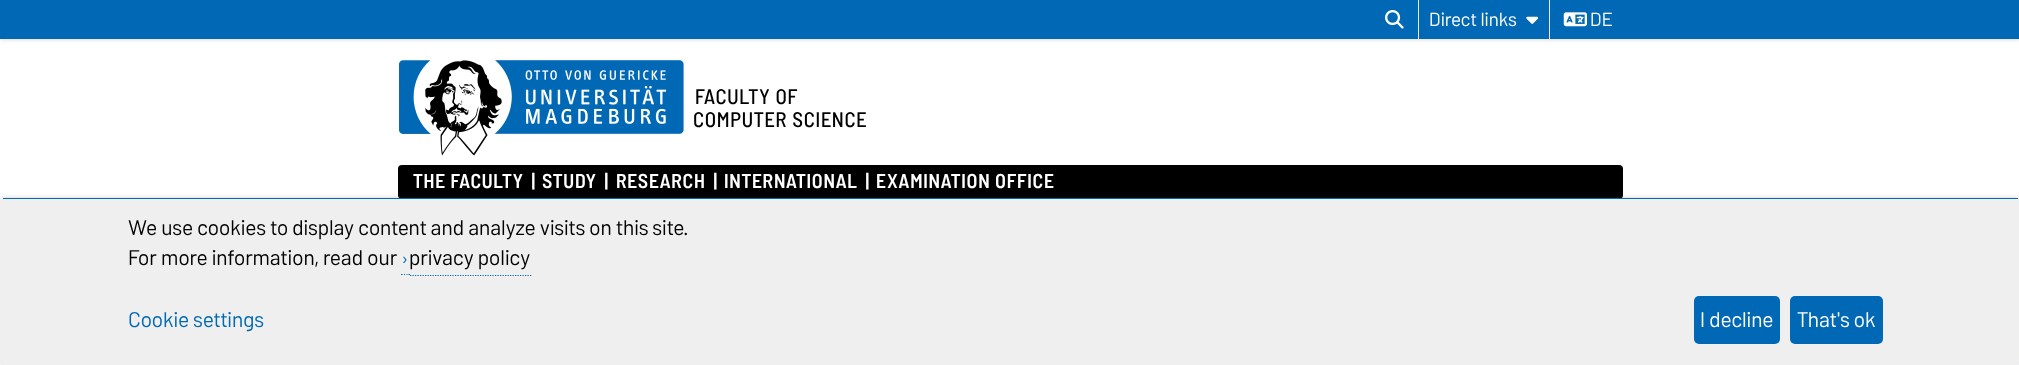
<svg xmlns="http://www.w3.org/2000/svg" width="2019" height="365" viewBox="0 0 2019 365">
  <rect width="100%" height="100%" fill="#fff"/>
  <path d="M0 0h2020v39H0z" fill="#43475545" filter="blur(2.5px)"/>
  <path d="M0 0h2019v39H0z" fill="#0068b4"/>
  <image x="1385" y="10" width="19" height="19" href="img/1.png"/>
  <path d="M1549 0h1v39H1549z" fill="#e7e9ea"/>
  <path d="M1418 0h1v39H1418z" fill="#e7e9ea"/>
  <image x="1526" y="16" width="13" height="8" href="img/2.png"/>
  <image x="1563" y="12" width="24" height="15" href="img/3.png"/>
  <image x="399" y="60" width="285" height="96" href="img/4.png"/>
  <rect x="398" y="165" width="1225" height="34" rx="4" fill="#000"/>
  <rect y="198" width="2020" height="167" rx="5" fill="#43475545" filter="blur(2.5px)"/>
  <rect y="198" width="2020" height="167" rx="5" fill="#efefef"/>
  <path d="M3 198h2015v1H3z" fill="#0068b4"/>
  <path d="M401 274.5H402.5M404 274.5H405M406.5 274.5H407.5M408.5 274.5H410" fill="none" stroke="#0068b4" stroke-width="1.2"/>
  <path d="M410 275.5H532.5" fill="none" stroke="#0068b4" stroke-width="1.2" stroke-dasharray="1.25 1.25"/>
  <rect x="1694" y="296" width="86" height="48" rx="5" fill="#0068b4"/>
  <rect x="1790" y="296" width="93" height="48" rx="5" fill="#0068b4"/>
  <g font-family="Barlow" font-size="19" fill="#fff">
    <text x="1429" y="26">Direct links</text>
    <text x="1590" y="26">DE</text>
  </g>
  <g font-family="Barlow Semi Condensed" font-size="21" font-weight="500" letter-spacing="0.75" fill="#000">
    <text x="695" y="104">FACULTY OF</text>
    <text x="693" y="127">COMPUTER SCIENCE</text>
  </g>
  <g font-family="Barlow Semi Condensed" font-size="20" font-weight="600" letter-spacing="0.75" fill="#fff">
    <text x="413" y="188">THE FACULTY</text>
    <text x="531" y="188">|</text>
    <text x="542" y="188">STUDY</text>
    <text x="604" y="188">|</text>
    <text x="616" y="188">RESEARCH</text>
    <text x="713" y="188">|</text>
    <text x="724" y="188">INTERNATIONAL</text>
    <text x="865" y="188">|</text>
    <text x="876" y="188">EXAMINATION OFFICE</text>
  </g>
  <g font-family="Barlow" font-size="21.25" fill="#000">
    <text x="128" y="235">We use cookies to display content and analyze visits on this site.</text>
    <text x="128" y="265">For more information, read our</text>
  </g>
  <text x="402" y="265" font-family="Barlow" font-size="18" fill="#0068b4">›</text>
  <text x="409" y="265" font-family="Barlow" font-size="21.25" fill="#000">privacy policy</text>
  <text x="128" y="327" font-family="Barlow" font-size="21.25" fill="#0068b4">Cookie settings</text>
  <g font-family="Barlow" font-size="21.25" fill="#fff">
    <text x="1700" y="327">I decline</text>
    <text x="1797" y="327">That's ok</text>
  </g>
</svg>
